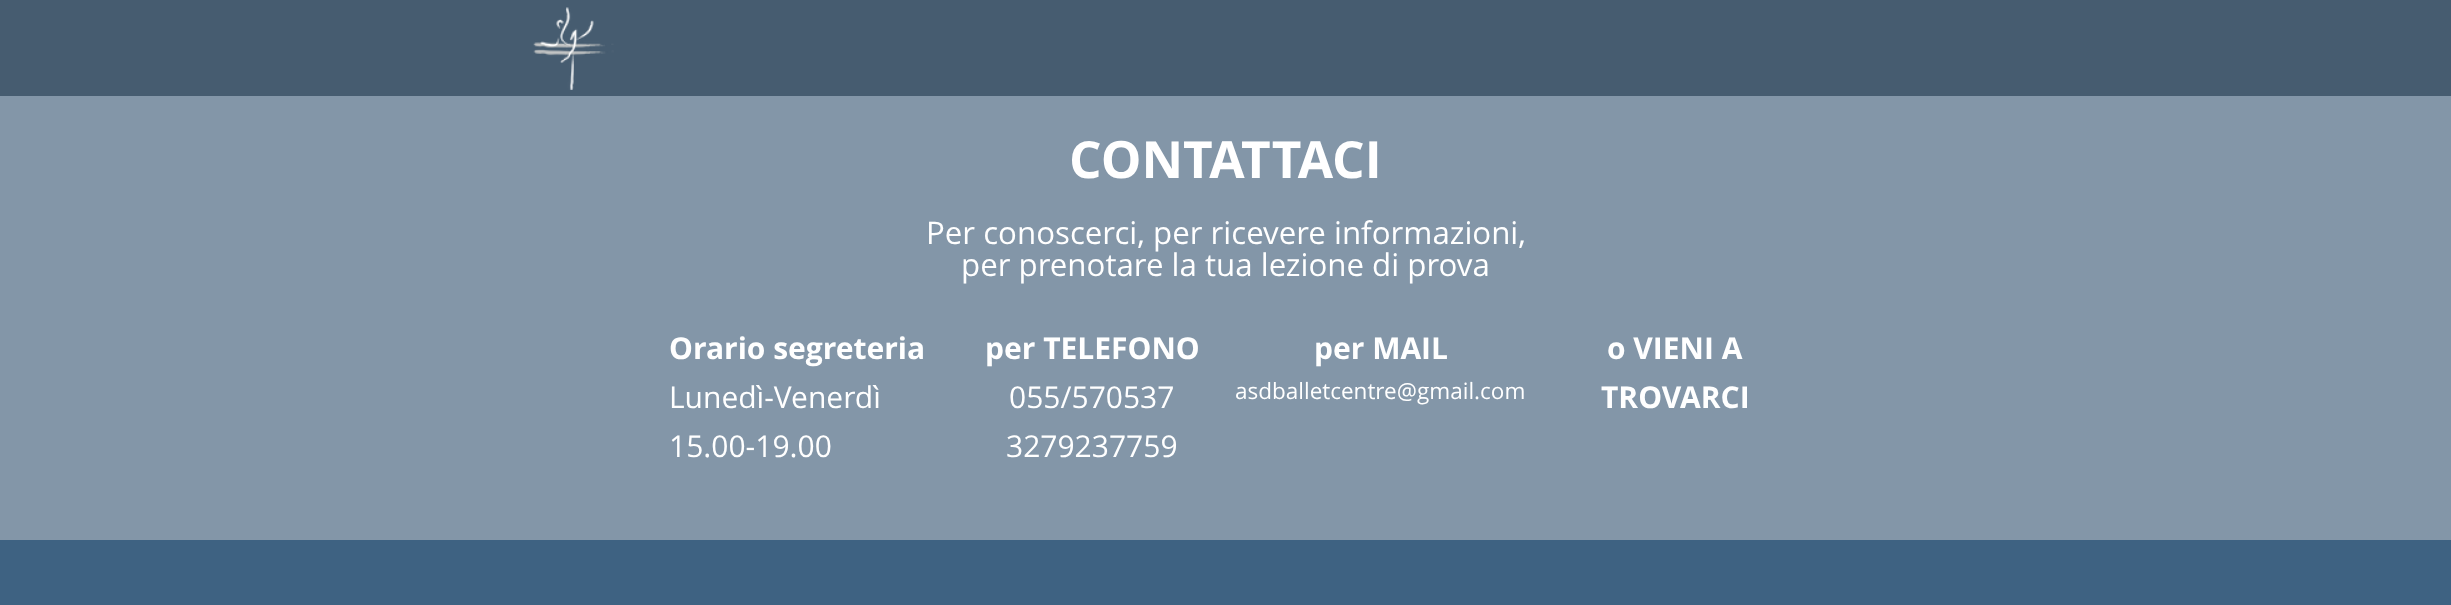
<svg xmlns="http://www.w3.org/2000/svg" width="2451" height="605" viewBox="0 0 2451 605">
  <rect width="100%" height="100%" fill="#3e6282"/>
  <path d="M0 0h2451v96H0z" fill="#465c70"/>
  <image x="533" y="7" width="81" height="83" href="img/1.png"/>
  <path d="M0 96h2451v444H0z" fill="#8396a8"/>
  <text x="1069" y="178" font-family="Open Sans" font-size="51.25" font-weight="bold" fill="#fff">CONTATTACI</text>
  <g font-family="Open Sans" font-size="31.25" fill="#fff">
    <text x="926" y="244">Per conoscerci, per ricevere informazioni,</text>
    <text x="961" y="276">per prenotare la tua lezione di prova</text>
  </g>
  <text x="669" y="359" font-family="Open Sans" font-size="30" font-weight="bold" fill="#fff">Orario segreteria</text>
  <g font-family="Open Sans" font-size="30" fill="#fff">
    <text x="669" y="408">Lunedì-Venerdì</text>
    <text x="669" y="457">15.00-19.00</text>
  </g>
  <text x="985" y="359" font-family="Open Sans" font-size="30" font-weight="bold" fill="#fff">per TELEFONO</text>
  <g font-family="Open Sans" font-size="30" fill="#fff">
    <text x="1009" y="408">055/570537</text>
    <text x="1006" y="457">3279237759</text>
  </g>
  <text x="1314" y="359" font-family="Open Sans" font-size="30" font-weight="bold" fill="#fff">per MAIL</text>
  <text x="1235" y="399" font-family="Open Sans" font-size="22.5" fill="#fff">asdballetcentre@gmail.com</text>
  <g font-family="Open Sans" font-size="30" font-weight="bold" fill="#fff">
    <text x="1607" y="359">o VIENI A</text>
    <text x="1601" y="408">TROVARCI</text>
  </g>
</svg>
